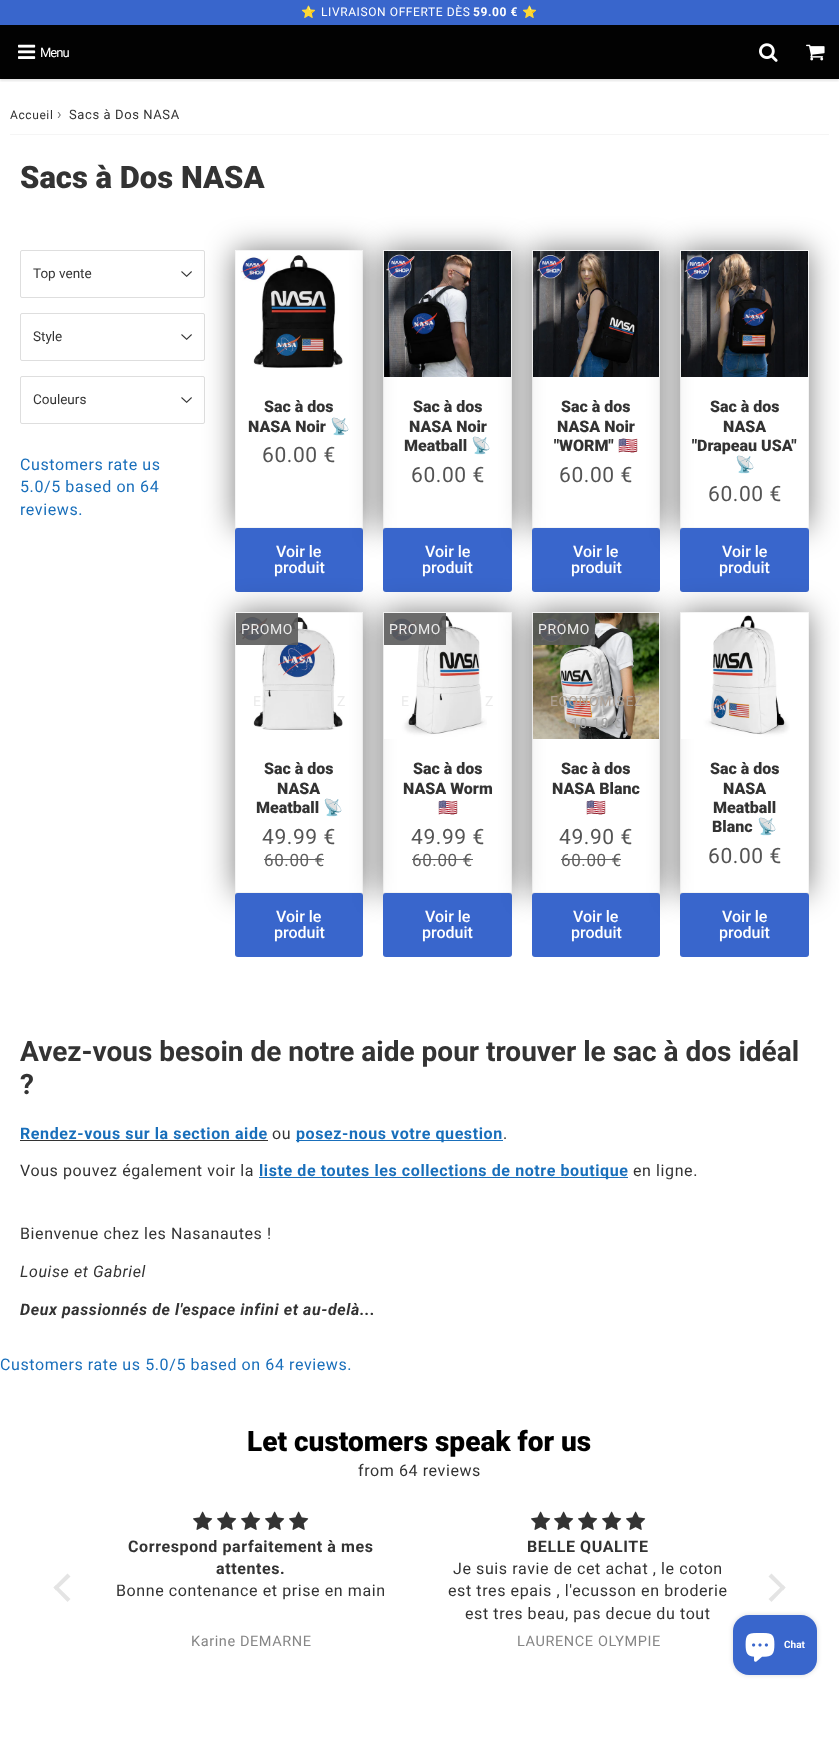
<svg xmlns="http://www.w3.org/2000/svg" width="839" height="1760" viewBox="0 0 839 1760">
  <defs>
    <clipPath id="clip1"><path d="M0 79h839v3H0z"/></clipPath>
    <clipPath id="clip2"><path d="M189 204H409V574H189ZM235 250H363V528H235Z" clip-rule="evenodd"/></clipPath>
    <clipPath id="clip3"><path d="M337 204H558V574H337ZM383 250H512V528H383Z" clip-rule="evenodd"/></clipPath>
    <clipPath id="clip4"><path d="M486 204H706V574H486ZM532 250H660V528H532Z" clip-rule="evenodd"/></clipPath>
    <clipPath id="clip5"><path d="M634 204H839V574H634ZM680 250H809V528H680Z" clip-rule="evenodd"/></clipPath>
    <clipPath id="clip6"><path d="M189 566H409V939H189ZM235 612H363V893H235Z" clip-rule="evenodd"/></clipPath>
    <clipPath id="clip7"><path d="M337 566H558V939H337ZM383 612H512V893H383Z" clip-rule="evenodd"/></clipPath>
    <clipPath id="clip8"><path d="M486 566H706V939H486ZM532 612H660V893H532Z" clip-rule="evenodd"/></clipPath>
    <clipPath id="clip9"><path d="M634 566H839V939H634ZM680 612H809V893H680Z" clip-rule="evenodd"/></clipPath>
  </defs>
  <rect width="100%" height="100%" fill="#fff"/>
  <path d="M0 25h839v54H0z" fill="#020202"/>
  <g clip-path="url(#clip1)">
    <path d="M0 27h839v54H0z" fill="#0000001a" filter="blur(1px)"/>
  </g>
  <path d="M0 0h839v25H0z" fill="#3966cc"/>
  <image x="18" y="44" width="18" height="15" href="img/1.png"/>
  <image x="759" y="43" width="19" height="19" href="img/2.png"/>
  <image x="806" y="44" width="19" height="17" href="img/3.png"/>
  <path d="M10 134h819v1H10z" fill="#f5f5f5"/>
  <image x="181" y="271" width="11" height="6" href="img/4.png"/>
  <rect x="20.5" y="250.5" width="184" height="47" rx="1.5" fill="none" stroke="#dedede"/>
  <image x="181" y="334" width="11" height="6" href="img/4.png"/>
  <rect x="20.5" y="313.5" width="184" height="47" rx="1.5" fill="none" stroke="#dedede"/>
  <image x="181" y="397" width="11" height="6" href="img/4.png"/>
  <rect x="20.5" y="376.5" width="184" height="47" rx="1.5" fill="none" stroke="#dedede"/>
  <g clip-path="url(#clip2)">
    <path d="M235 250h128v278H235z" fill="#00000080" filter="blur(15px)"/>
  </g>
  <path d="M235.5 250.5h127v277H235.5z" fill="none" stroke="#f5f5f5"/>
  <image x="240" y="255" width="103" height="113" href="img/5.png"/>
  <rect x="235" y="528" width="128" height="64" rx="3" fill="#3966cc"/>
  <g clip-path="url(#clip3)">
    <path d="M383 250h129v278H383z" fill="#00000080" filter="blur(15px)"/>
  </g>
  <path d="M383.5 250.5h128v277H383.5z" fill="none" stroke="#3333330d"/>
  <image x="384" y="251" width="127" height="126" href="img/6.png"/>
  <rect x="383" y="528" width="129" height="64" rx="3" fill="#3966cc"/>
  <g clip-path="url(#clip4)">
    <path d="M532 250h128v278H532z" fill="#00000080" filter="blur(15px)"/>
  </g>
  <path d="M532.5 250.5h127v277H532.5z" fill="none" stroke="#3333330d"/>
  <image x="533" y="251" width="126" height="126" href="img/7.png"/>
  <rect x="532" y="528" width="128" height="64" rx="3" fill="#3966cc"/>
  <g clip-path="url(#clip5)">
    <path d="M680 250h129v278H680z" fill="#00000080" filter="blur(15px)"/>
  </g>
  <path d="M680.5 250.5h128v277H680.5z" fill="none" stroke="#3333330d"/>
  <image x="681" y="251" width="127" height="126" href="img/8.png"/>
  <rect x="680" y="528" width="129" height="64" rx="3" fill="#3966cc"/>
  <g clip-path="url(#clip6)">
    <path d="M235 612h128v281H235z" fill="#00000080" filter="blur(15px)"/>
  </g>
  <path d="M235.5 612.5h127v280H235.5z" fill="none" stroke="#f5f5f5"/>
  <image x="239" y="617" width="104" height="113" href="img/9.png"/>
  <path d="M236 613h62v32H236z" fill="#5b5b5be6"/>
  <path d="M264 859h60v1H264z" fill="#606060"/>
  <rect x="235" y="893" width="128" height="64" rx="3" fill="#3966cc"/>
  <g clip-path="url(#clip7)">
    <path d="M383 612h129v281H383z" fill="#00000080" filter="blur(15px)"/>
  </g>
  <path d="M383.5 612.5h128v280H383.5z" fill="none" stroke="#3333330d"/>
  <image x="384" y="613" width="103" height="126" href="img/10.png"/>
  <path d="M384 613h62v32H384z" fill="#5b5b5be6"/>
  <path d="M412 859h61v1H412z" fill="#606060"/>
  <rect x="383" y="893" width="129" height="64" rx="3" fill="#3966cc"/>
  <g clip-path="url(#clip8)">
    <path d="M532 612h128v281H532z" fill="#00000080" filter="blur(15px)"/>
  </g>
  <path d="M532.5 612.5h127v280H532.5z" fill="none" stroke="#3333330d"/>
  <image x="533" y="613" width="126" height="126" href="img/11.png"/>
  <path d="M533 613h62v32H533z" fill="#5b5b5be6"/>
  <path d="M561 859h60v1H561z" fill="#606060"/>
  <rect x="532" y="893" width="128" height="64" rx="3" fill="#3966cc"/>
  <g clip-path="url(#clip9)">
    <path d="M680 612h129v281H680z" fill="#00000080" filter="blur(15px)"/>
  </g>
  <path d="M680.5 612.5h128v280H680.5z" fill="none" stroke="#3333330d"/>
  <image x="681" y="613" width="109" height="126" href="img/12.png"/>
  <rect x="680" y="893" width="129" height="64" rx="3" fill="#3966cc"/>
  <path d="M20 1140h248v1H20z" fill="#333"/>
  <path d="M296 1140h207v1H296z" fill="#196fbb"/>
  <path d="M259 1177h369v1H259z" fill="#196fbb"/>
  <image x="193" y="1511" width="20" height="19" href="img/13.png"/>
  <image x="217" y="1511" width="20" height="19" href="img/13.png"/>
  <image x="241" y="1511" width="20" height="19" href="img/13.png"/>
  <image x="265" y="1511" width="20" height="19" href="img/13.png"/>
  <image x="289" y="1511" width="20" height="19" href="img/13.png"/>
  <image x="531" y="1511" width="20" height="19" href="img/13.png"/>
  <image x="554" y="1511" width="20" height="19" href="img/13.png"/>
  <image x="578" y="1511" width="20" height="19" href="img/13.png"/>
  <image x="602" y="1511" width="20" height="19" href="img/13.png"/>
  <image x="626" y="1511" width="20" height="19" href="img/13.png"/>
  <path d="M53.5 1587.5L67.5 1573.5L70.5 1576.5L56 1590.5Z" fill="#e4e4e4"/>
  <path d="M53.5 1587.5L56 1585L70.5 1599L67.5 1602Z" fill="#e4e4e4"/>
  <path d="M768.5 1576.5L771.5 1573.5L785.5 1587.5L783 1590.5Z" fill="#e4e4e4"/>
  <path d="M768.5 1599L783 1585L785.5 1587.5L771.5 1602Z" fill="#e4e4e4"/>
  <rect x="733" y="1615" width="84" height="60" rx="16" fill="#00000026" filter="blur(2.5px)"/>
  <rect x="733" y="1615" width="84" height="60" rx="16" fill="#3966cc"/>
  <image x="745" y="1633" width="30" height="29" href="img/14.png"/>
  <text x="301" y="16" font-family="Noto Color Emoji" font-size="12" letter-spacing="0.6" fill="#fff">⭐️</text>
  <text x="321" y="16" font-family="Roboto" font-size="12" letter-spacing="0.6" fill="#fff">LIVRAISON OFFERTE DÈS</text>
  <text x="473" y="16" font-family="Roboto" font-size="12" font-weight="bold" letter-spacing="0.6" fill="#fff">59.00 €</text>
  <text x="522" y="16" font-family="Noto Color Emoji" font-size="12" letter-spacing="0.6" fill="#fff">⭐️</text>
  <text x="40" y="57" font-family="Roboto" font-size="13" letter-spacing="-1" fill="#fff">Menu</text>
  <text x="10" y="119" font-family="Roboto" font-size="12" letter-spacing="0.6" fill="#333">Accueil</text>
  <text x="57" y="119" font-family="Roboto" font-size="15" letter-spacing="0.6" fill="#767676">›</text>
  <text x="69" y="119" font-family="Roboto" font-size="13" letter-spacing="0.6" fill="#333">Sacs à Dos NASA</text>
  <text x="20" y="188" font-family="Roboto" font-size="31" font-weight="900" fill="#333">Sacs à Dos NASA</text>
  <g font-family="Roboto" font-size="13.5" fill="#333">
    <text x="33" y="278">Top vente</text>
    <text x="33" y="341">Style</text>
    <text x="33" y="404">Couleurs</text>
  </g>
  <g font-family="Roboto" font-size="16" letter-spacing="0.6" fill="#196fbb">
    <text x="20" y="470">Customers rate us</text>
    <text x="20" y="492">5.0/5 based on 64</text>
    <text x="20" y="515">reviews.</text>
  </g>
  <g font-family="Roboto" font-size="16" font-weight="900" fill="#333">
    <text x="264" y="412">Sac à dos</text>
    <text x="248" y="432">NASA Noir</text>
  </g>
  <text x="330" y="432" font-family="Noto Color Emoji" font-size="16" font-weight="bold" fill="#333">📡</text>
  <text x="262" y="462" font-family="Roboto" font-size="21" letter-spacing="0.6" fill="#545454">60.00 €</text>
  <g font-family="Roboto" font-size="16" font-weight="500" fill="#fff">
    <text x="276" y="557">Voir le</text>
    <text x="274" y="573">produit</text>
  </g>
  <g font-family="Roboto" font-size="16" font-weight="900" fill="#333">
    <text x="413" y="412">Sac à dos</text>
    <text x="409" y="432">NASA Noir</text>
    <text x="404" y="451">Meatball</text>
  </g>
  <text x="471" y="451" font-family="Noto Color Emoji" font-size="16" font-weight="bold" fill="#333">📡</text>
  <text x="411" y="482" font-family="Roboto" font-size="21" letter-spacing="0.6" fill="#545454">60.00 €</text>
  <g font-family="Roboto" font-size="16" font-weight="500" fill="#fff">
    <text x="425" y="557">Voir le</text>
    <text x="422" y="573">produit</text>
  </g>
  <g font-family="Roboto" font-size="16" font-weight="900" fill="#333">
    <text x="561" y="412">Sac à dos</text>
    <text x="557" y="432">NASA Noir</text>
    <text x="554" y="451">"WORM"</text>
  </g>
  <text x="618" y="451" font-family="Noto Color Emoji" font-size="16" font-weight="bold" fill="#333">🇺🇸</text>
  <text x="559" y="482" font-family="Roboto" font-size="21" letter-spacing="0.6" fill="#545454">60.00 €</text>
  <g font-family="Roboto" font-size="16" font-weight="500" fill="#fff">
    <text x="573" y="557">Voir le</text>
    <text x="571" y="573">produit</text>
  </g>
  <g font-family="Roboto" font-size="16" font-weight="900" fill="#333">
    <text x="710" y="412">Sac à dos</text>
    <text x="723" y="432">NASA</text>
    <text x="692" y="451">"Drapeau USA"</text>
  </g>
  <text x="735" y="470" font-family="Noto Color Emoji" font-size="16" font-weight="bold" fill="#333">📡</text>
  <text x="708" y="501" font-family="Roboto" font-size="21" letter-spacing="0.6" fill="#545454">60.00 €</text>
  <g font-family="Roboto" font-size="16" font-weight="500" fill="#fff">
    <text x="722" y="557">Voir le</text>
    <text x="719" y="573">produit</text>
  </g>
  <g font-family="Roboto" font-size="14" letter-spacing="0.6" fill="#ebebeb">
    <text x="241" y="634">PROMO</text>
    <text x="253" y="706">E</text>
    <text x="337" y="706">Z</text>
  </g>
  <g font-family="Roboto" font-size="16" font-weight="900" fill="#333">
    <text x="264" y="774">Sac à dos</text>
    <text x="277" y="794">NASA</text>
    <text x="256" y="813">Meatball</text>
  </g>
  <text x="323" y="813" font-family="Noto Color Emoji" font-size="16" font-weight="bold" fill="#333">📡</text>
  <text x="262" y="844" font-family="Roboto" font-size="21" letter-spacing="0.6" fill="#545454">49.99 €</text>
  <text x="264" y="866" font-family="Roboto" font-size="17" letter-spacing="0.6" fill="#606060">60.00 €</text>
  <g font-family="Roboto" font-size="16" font-weight="500" fill="#fff">
    <text x="276" y="922">Voir le</text>
    <text x="274" y="938">produit</text>
  </g>
  <g font-family="Roboto" font-size="14" letter-spacing="0.6" fill="#ebebeb">
    <text x="389" y="634">PROMO</text>
    <text x="401" y="706">E</text>
    <text x="485" y="706">Z</text>
  </g>
  <g font-family="Roboto" font-size="16" font-weight="900" fill="#333">
    <text x="413" y="774">Sac à dos</text>
    <text x="403" y="794">NASA Worm</text>
  </g>
  <text x="438" y="813" font-family="Noto Color Emoji" font-size="16" font-weight="bold" fill="#333">🇺🇸</text>
  <text x="411" y="844" font-family="Roboto" font-size="21" letter-spacing="0.6" fill="#545454">49.99 €</text>
  <text x="412" y="866" font-family="Roboto" font-size="17" letter-spacing="0.6" fill="#606060">60.00 €</text>
  <g font-family="Roboto" font-size="16" font-weight="500" fill="#fff">
    <text x="425" y="922">Voir le</text>
    <text x="422" y="938">produit</text>
  </g>
  <text x="538" y="634" font-family="Roboto" font-size="14" letter-spacing="0.6" fill="#ebebeb">PROMO</text>
  <text x="550" y="706" font-family="Roboto" font-size="14" letter-spacing="0.6" fill="#aea195">ECONOMISEZ</text>
  <text x="571" y="728" font-family="Roboto" font-size="14" letter-spacing="0.6" fill="#a6a6a5">10.10 €</text>
  <g font-family="Roboto" font-size="16" font-weight="900" fill="#333">
    <text x="561" y="774">Sac à dos</text>
    <text x="552" y="794">NASA Blanc</text>
  </g>
  <text x="586" y="813" font-family="Noto Color Emoji" font-size="16" font-weight="bold" fill="#333">🇺🇸</text>
  <text x="559" y="844" font-family="Roboto" font-size="21" letter-spacing="0.6" fill="#545454">49.90 €</text>
  <text x="561" y="866" font-family="Roboto" font-size="17" letter-spacing="0.6" fill="#606060">60.00 €</text>
  <g font-family="Roboto" font-size="16" font-weight="500" fill="#fff">
    <text x="573" y="922">Voir le</text>
    <text x="571" y="938">produit</text>
  </g>
  <g font-family="Roboto" font-size="16" font-weight="900" fill="#333">
    <text x="710" y="774">Sac à dos</text>
    <text x="723" y="794">NASA</text>
    <text x="713" y="813">Meatball</text>
    <text x="712" y="832">Blanc</text>
  </g>
  <text x="757" y="832" font-family="Noto Color Emoji" font-size="16" font-weight="bold" fill="#333">📡</text>
  <text x="708" y="863" font-family="Roboto" font-size="21" letter-spacing="0.6" fill="#545454">60.00 €</text>
  <g font-family="Roboto" font-size="16" font-weight="500" fill="#fff">
    <text x="722" y="922">Voir le</text>
    <text x="719" y="938">produit</text>
  </g>
  <g font-family="Roboto" font-size="28" font-weight="bold" fill="#333">
    <text x="20" y="1061">Avez-vous besoin de notre aide pour trouver le sac à dos idéal</text>
    <text x="20" y="1094">?</text>
  </g>
  <text x="20" y="1139" font-family="Roboto" font-size="16" font-weight="bold" letter-spacing="0.6" fill="#196fbb">Rendez-vous sur la section aide</text>
  <text x="272" y="1139" font-family="Roboto" font-size="16" letter-spacing="0.6" fill="#333">ou</text>
  <text x="296" y="1139" font-family="Roboto" font-size="16" font-weight="bold" letter-spacing="0.6" fill="#196fbb">posez-nous votre question</text>
  <g font-family="Roboto" font-size="16" letter-spacing="0.6" fill="#333">
    <text x="503" y="1139">.</text>
    <text x="20" y="1176">Vous pouvez également voir la</text>
  </g>
  <text x="259" y="1176" font-family="Roboto" font-size="16" font-weight="bold" letter-spacing="0.6" fill="#196fbb">liste de toutes les collections de notre boutique</text>
  <g font-family="Roboto" font-size="16" letter-spacing="0.6" fill="#333">
    <text x="633" y="1176">en ligne.</text>
    <text x="20" y="1239">Bienvenue chez les Nasanautes !</text>
  </g>
  <text x="20" y="1277" font-family="Roboto" font-size="16" font-style="italic" letter-spacing="0.6" fill="#333">Louise et Gabriel</text>
  <text x="20" y="1315" font-family="Roboto" font-size="16" font-weight="bold" font-style="italic" letter-spacing="0.6" fill="#333">Deux passionnés de l'espace infini et au-delà...</text>
  <text x="0" y="1370" font-family="Roboto" font-size="16" letter-spacing="0.6" fill="#196fbb">Customers rate us 5.0/5 based on 64 reviews.</text>
  <text x="247" y="1451" font-family="Roboto" font-size="28" font-weight="900" fill="#000">Let customers speak for us</text>
  <text x="358" y="1476" font-family="Roboto" font-size="16" letter-spacing="0.6" fill="#333">from 64 reviews</text>
  <g font-family="Roboto" font-size="16" font-weight="bold" letter-spacing="0.6" fill="#333">
    <text x="128" y="1552">Correspond parfaitement à mes</text>
    <text x="216" y="1574">attentes.</text>
  </g>
  <text x="116" y="1596" font-family="Roboto" font-size="16" letter-spacing="0.6" fill="#333">Bonne contenance et prise en main</text>
  <text x="191" y="1646" font-family="Roboto" font-size="14.5" letter-spacing="0.6" fill="#858585">Karine DEMARNE</text>
  <text x="527" y="1552" font-family="Roboto" font-size="16" font-weight="bold" letter-spacing="0.6" fill="#333">BELLE QUALITE</text>
  <g font-family="Roboto" font-size="16" letter-spacing="0.6" fill="#333">
    <text x="453" y="1574">Je suis ravie de cet achat , le coton</text>
    <text x="448" y="1596">est tres epais , l'ecusson en broderie</text>
    <text x="465" y="1619">est tres beau, pas decue du tout</text>
  </g>
  <text x="517" y="1646" font-family="Roboto" font-size="14.5" letter-spacing="0.6" fill="#858585">LAURENCE OLYMPIE</text>
  <text x="784" y="1648" font-family="Roboto" font-size="10" font-weight="bold" fill="#fff">Chat</text>
</svg>
